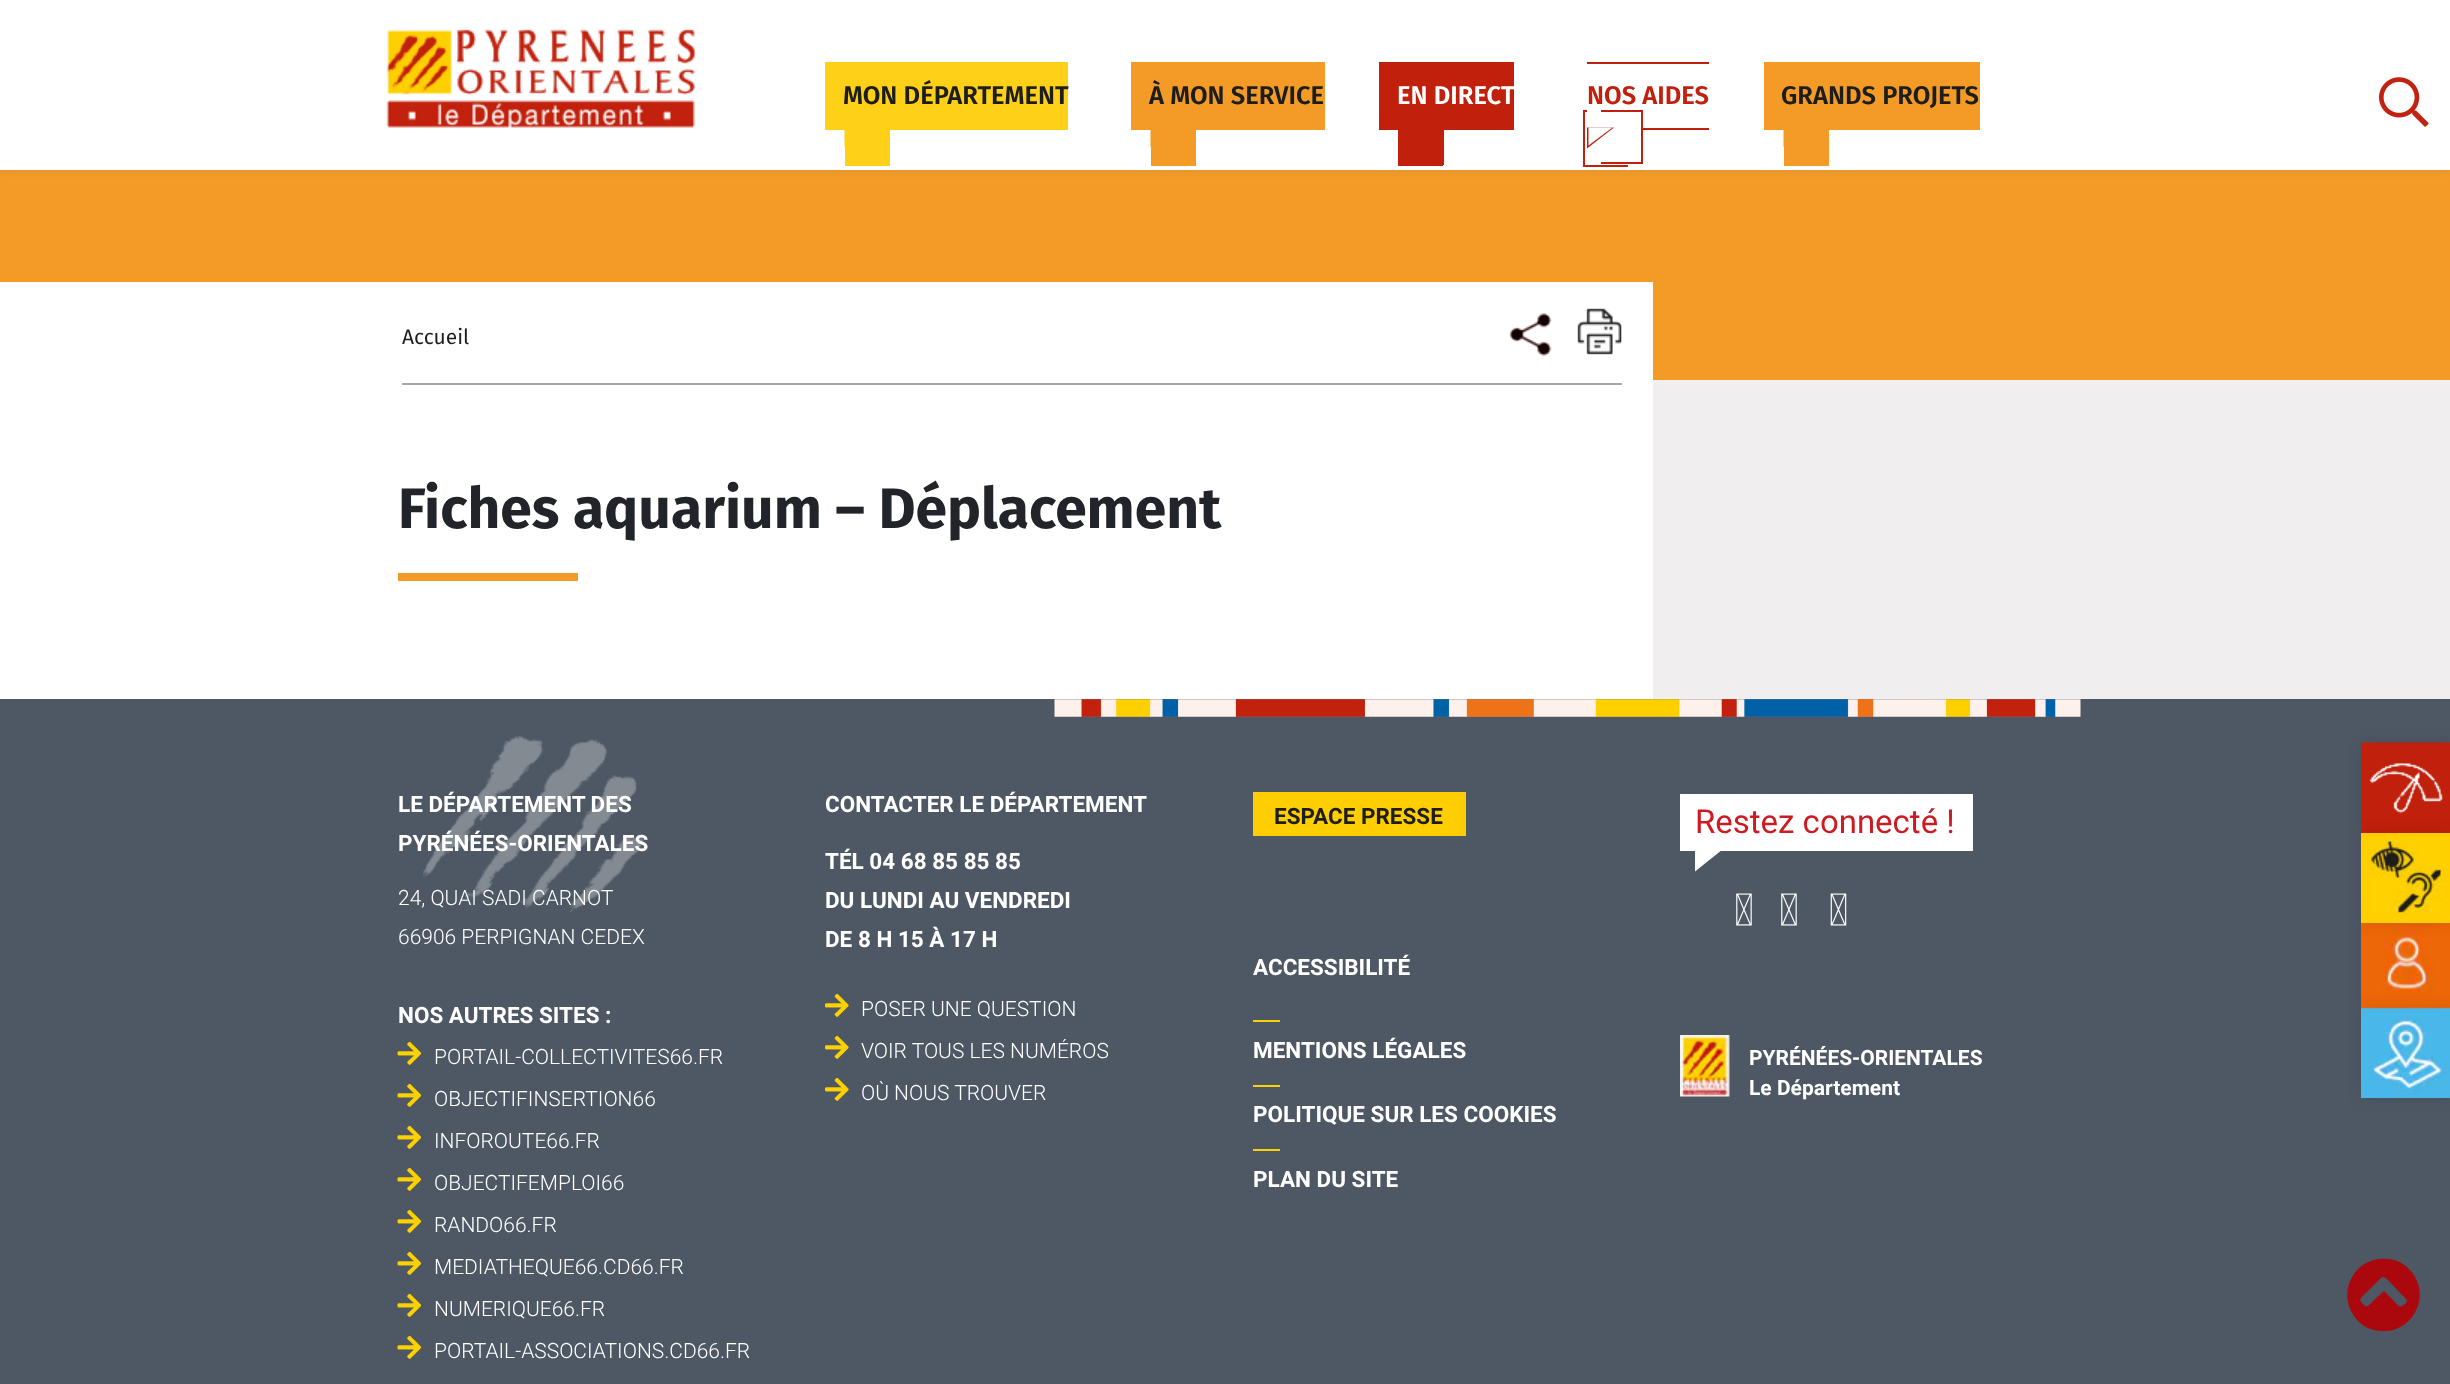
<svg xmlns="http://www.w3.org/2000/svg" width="2450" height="1384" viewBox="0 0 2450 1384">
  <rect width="100%" height="100%" fill="#4e5864"/>
  <path d="M0 170h2450v210H0z" fill="#f49b27"/>
  <path d="M-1 0h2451v170H-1z" fill="#5a5a5a33" filter="blur(5px)"/>
  <path d="M0 0h2450v170H0z" fill="#fff"/>
  <image x="386" y="29" width="310" height="99" href="img/1.png"/>
  <path d="M825 62h243v68H825z" fill="#fed018"/>
  <path d="M845 130h45v36H845z" fill="#fed018"/>
  <path d="M844.5 126H871.5L844.5 147Z" fill="#fed018"/>
  <path d="M1131 62h194v68H1131z" fill="#f49b27"/>
  <path d="M1151 130h45v36H1151z" fill="#f49b27"/>
  <path d="M1150.5 126H1177.5L1150.5 147Z" fill="#f49b27"/>
  <path d="M1379 62h135v68H1379z" fill="#c1200d"/>
  <path d="M1398 130h44v34H1398z" fill="#c1200d"/>
  <path d="M1442 130h2v35H1442z" fill="#c1200d"/>
  <path d="M1398 164h45v2H1398z" fill="#c1200d"/>
  <path d="M1583 110h4v2H1583z" fill="#c1200d"/>
  <path d="M1583 165h45v2H1583z" fill="#c1200d"/>
  <path d="M1583 110h2v57H1583z" fill="#c1200d"/>
  <path d="M1587 62h122v2H1587z" fill="#c1200d"/>
  <path d="M1643 128h66v2H1643z" fill="#c1200d"/>
  <path d="M1601 110h42v2H1601z" fill="#c1200d"/>
  <path d="M1641 110h2v54H1641z" fill="#c1200d"/>
  <path d="M1601 162h42v2H1601z" fill="#c1200d"/>
  <path d="M1587 127.5H1614L1587 148.5Z" fill="#c1200d"/>
  <path d="M1588.5 127.5H1612.5L1588.5 145.5Z" fill="#fff"/>
  <path d="M1764 62h216v68H1764z" fill="#f49b27"/>
  <path d="M1784 130h45v36H1784z" fill="#f49b27"/>
  <path d="M1783.5 126H1810.5L1783.5 147Z" fill="#f49b27"/>
  <image x="2379" y="77" width="50" height="50" href="img/2.png"/>
  <path d="M1653 380h797v319H1653z" fill="#f0eeef"/>
  <path d="M0 282h1653v417H0z" fill="#fff"/>
  <image x="1509" y="313" width="43" height="43" href="img/3.png"/>
  <image x="1577" y="308" width="45" height="47" href="img/4.png"/>
  <path d="M402 383h1220v2H402z" fill="#a6a6a6"/>
  <path d="M398 573h180v8H398z" fill="#f49b27"/>
  <image x="423" y="736" width="221" height="176" href="img/5.png"/>
  <image x="1054" y="699" width="1027" height="18" href="img/6.png"/>
  <image x="397" y="1041" width="25" height="24" href="img/7.png"/>
  <image x="397" y="1083" width="25" height="24" href="img/7.png"/>
  <image x="397" y="1125" width="25" height="24" href="img/7.png"/>
  <image x="397" y="1167" width="25" height="24" href="img/7.png"/>
  <image x="397" y="1209" width="25" height="24" href="img/7.png"/>
  <image x="397" y="1251" width="25" height="24" href="img/7.png"/>
  <image x="397" y="1293" width="25" height="24" href="img/7.png"/>
  <image x="397" y="1335" width="25" height="24" href="img/7.png"/>
  <image x="825" y="993" width="24" height="24" href="img/8.png"/>
  <image x="825" y="1035" width="24" height="24" href="img/8.png"/>
  <image x="825" y="1077" width="24" height="24" href="img/8.png"/>
  <path d="M1253 792h213v44H1253z" fill="#ffce01"/>
  <path d="M1253 1020h27v2H1253z" fill="#fdd000"/>
  <path d="M1253 1085h27v2H1253z" fill="#fdd000"/>
  <path d="M1253 1149h27v2H1253z" fill="#fdd000"/>
  <path d="M1680 794h293v57H1680z" fill="#fff"/>
  <path d="M1695 841.5H1732.5L1695 871.5Z" fill="#fff"/>
  <image x="1736" y="893" width="16" height="33" href="img/9.png"/>
  <image x="1781" y="893" width="16" height="33" href="img/9.png"/>
  <image x="1830" y="893" width="17" height="33" href="img/10.png"/>
  <image x="1680" y="1035" width="50" height="62" href="img/11.png"/>
  <path d="M2361 743h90v90H2361z" fill="#0000001a" filter="blur(7.5px)"/>
  <image x="2361" y="742" width="89" height="91" href="img/12.png"/>
  <path d="M2361 920h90v90H2361z" fill="#0000001a" filter="blur(7.5px)"/>
  <image x="2361" y="923" width="89" height="86" href="img/14.png"/>
  <path d="M2361 833h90v90H2361z" fill="#0000001a" filter="blur(7.5px)"/>
  <path d="M2361 833h89v90H2361z" fill="#ffcf00"/>
  <image x="2370" y="841" width="73" height="73" href="img/13.png"/>
  <path d="M2361 1008h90v90H2361z" fill="#0000001a" filter="blur(7.5px)"/>
  <image x="2361" y="1007" width="89" height="91" href="img/15.png"/>
  <path d="M2358 1321C2334 1296 2353 1256 2387 1259C2396 1259 2403 1263 2409 1269C2433 1293 2414 1334 2380 1331C2371 1330 2364 1327 2358 1321ZM2381 1278L2368 1291C2361 1298 2357 1299 2364 1305C2367 1309 2371 1303 2374 1300L2384 1291L2393 1300C2395 1302 2399 1308 2402 1306L2405 1304C2409 1300 2406 1299 2402 1295L2389 1281C2387 1280 2384 1275 2381 1278Z" fill="#ab080e"/>
  <g font-family="Fira Sans" font-size="25.5" font-weight="600" fill="#1d1d1b">
    <text x="843" y="104">MON DÉPARTEMENT</text>
    <text x="1149" y="104">À MON SERVICE</text>
  </g>
  <text x="1397" y="104" font-family="Fira Sans" font-size="25.5" font-weight="600" fill="#fff">EN DIRECT</text>
  <text x="1587" y="104" font-family="Fira Sans" font-size="25.5" font-weight="600" fill="#c1200d">NOS AIDES</text>
  <text x="1781" y="104" font-family="Fira Sans" font-size="25.5" font-weight="600" fill="#1d1d1b">GRANDS PROJETS</text>
  <text x="402" y="344" font-family="Fira Sans" font-size="21" fill="#1d1d1b">Accueil</text>
  <text x="398" y="528" font-family="Fira Sans" font-size="57" font-weight="bold" fill="#212529">Fiches aquarium – Déplacement</text>
  <g font-family="Roboto" font-size="22.5" font-weight="bold" fill="#fff">
    <text x="398" y="812">LE DÉPARTEMENT DES</text>
    <text x="398" y="851">PYRÉNÉES-ORIENTALES</text>
  </g>
  <g font-family="Roboto" font-size="21" font-weight="300" fill="#fff">
    <text x="398" y="905">24, QUAI SADI CARNOT</text>
    <text x="398" y="944">66906 PERPIGNAN CEDEX</text>
  </g>
  <text x="398" y="1023" font-family="Roboto" font-size="22.5" font-weight="bold" fill="#fff">NOS AUTRES SITES :</text>
  <g font-family="Roboto" font-size="21" font-weight="300" fill="#fff">
    <text x="434" y="1064">PORTAIL-COLLECTIVITES66.FR</text>
    <text x="434" y="1106">OBJECTIFINSERTION66</text>
    <text x="434" y="1148">INFOROUTE66.FR</text>
    <text x="434" y="1190">OBJECTIFEMPLOI66</text>
    <text x="434" y="1232">RANDO66.FR</text>
    <text x="434" y="1274">MEDIATHEQUE66.CD66.FR</text>
    <text x="434" y="1316">NUMERIQUE66.FR</text>
    <text x="434" y="1358">PORTAIL-ASSOCIATIONS.CD66.FR</text>
  </g>
  <g font-family="Roboto" font-size="22.5" font-weight="bold" fill="#fff">
    <text x="825" y="812">CONTACTER LE DÉPARTEMENT</text>
    <text x="825" y="869">TÉL 04 68 85 85 85</text>
    <text x="825" y="908">DU LUNDI AU VENDREDI</text>
    <text x="825" y="947">DE 8 H 15 À 17 H</text>
  </g>
  <g font-family="Roboto" font-size="21" font-weight="300" fill="#fff">
    <text x="861" y="1016">POSER UNE QUESTION</text>
    <text x="861" y="1058">VOIR TOUS LES NUMÉROS</text>
    <text x="861" y="1100">OÙ NOUS TROUVER</text>
  </g>
  <text x="1274" y="824" font-family="Roboto" font-size="22.5" font-weight="bold" fill="#1d1d1b">ESPACE PRESSE</text>
  <g font-family="Roboto" font-size="22.5" font-weight="bold" fill="#fff">
    <text x="1253" y="975">ACCESSIBILITÉ</text>
    <text x="1253" y="1058">MENTIONS LÉGALES</text>
    <text x="1253" y="1122">POLITIQUE SUR LES COOKIES</text>
    <text x="1253" y="1187">PLAN DU SITE</text>
  </g>
  <text x="1695" y="833" font-family="Roboto" font-size="33" fill="#cc1b23">Restez connecté !</text>
  <g font-family="Roboto" font-size="21" font-weight="bold" fill="#fff">
    <text x="1749" y="1065">PYRÉNÉES-ORIENTALES</text>
    <text x="1749" y="1095">Le Département</text>
  </g>
</svg>
